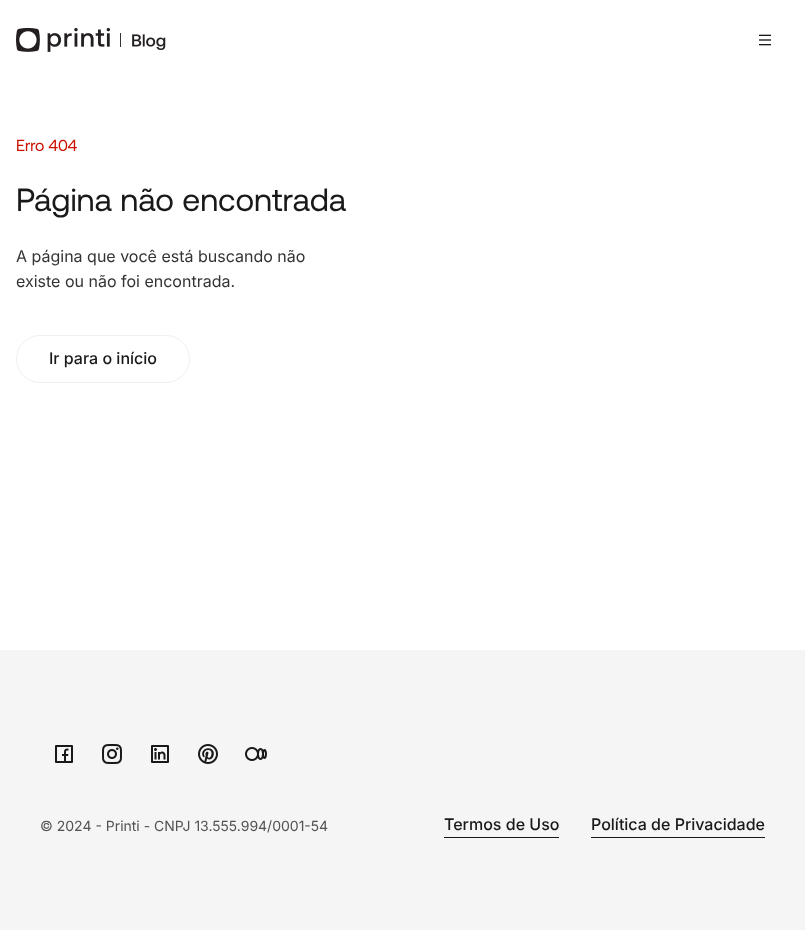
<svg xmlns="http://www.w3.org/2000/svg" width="805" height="948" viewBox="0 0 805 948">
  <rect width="100%" height="100%" fill="#fff"/>
  <image x="16" y="28" width="150" height="24" href="img/1.png"/>
  <image x="759" y="34" width="12" height="12" href="img/2.png"/>
  <rect x="16.5" y="335.5" width="173" height="47" rx="23.5" fill="none" stroke="#f0f0f0"/>
  <path d="M0 650h805v280H0z" fill="#f5f5f5"/>
  <image x="55" y="745" width="18" height="18" href="img/3.png"/>
  <image x="102" y="744" width="20" height="20" href="img/4.png"/>
  <image x="151" y="745" width="18" height="18" href="img/5.png"/>
  <image x="198" y="744" width="20" height="20" href="img/6.png"/>
  <image x="245" y="747" width="22" height="14" href="img/7.png"/>
  <path d="M444 837h115v1H444z" fill="#191919"/>
  <path d="M591 837h174v1H591z" fill="#191919"/>
  <text x="16" y="151" font-family="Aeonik" font-size="16" fill="#c10">Erro 404</text>
  <text x="16" y="211" font-family="Aeonik" font-size="32" fill="#191919">Página não encontrada</text>
  <g font-family="Inter" font-size="16" fill="#333">
    <text x="16" y="262">A página que você está buscando não</text>
    <text x="16" y="287">existe ou não foi encontrada.</text>
  </g>
  <text x="49" y="364" font-family="Inter" font-size="16" font-weight="500" fill="#191919">Ir para o início</text>
  <text x="40" y="831" font-family="Inter" font-size="14" fill="#525252">© 2024 - Printi - CNPJ 13.555.994/0001-54</text>
  <g font-family="Inter" font-size="16" font-weight="500" fill="#191919">
    <text x="444" y="830">Termos de Uso</text>
    <text x="591" y="830">Política de Privacidade</text>
  </g>
</svg>
